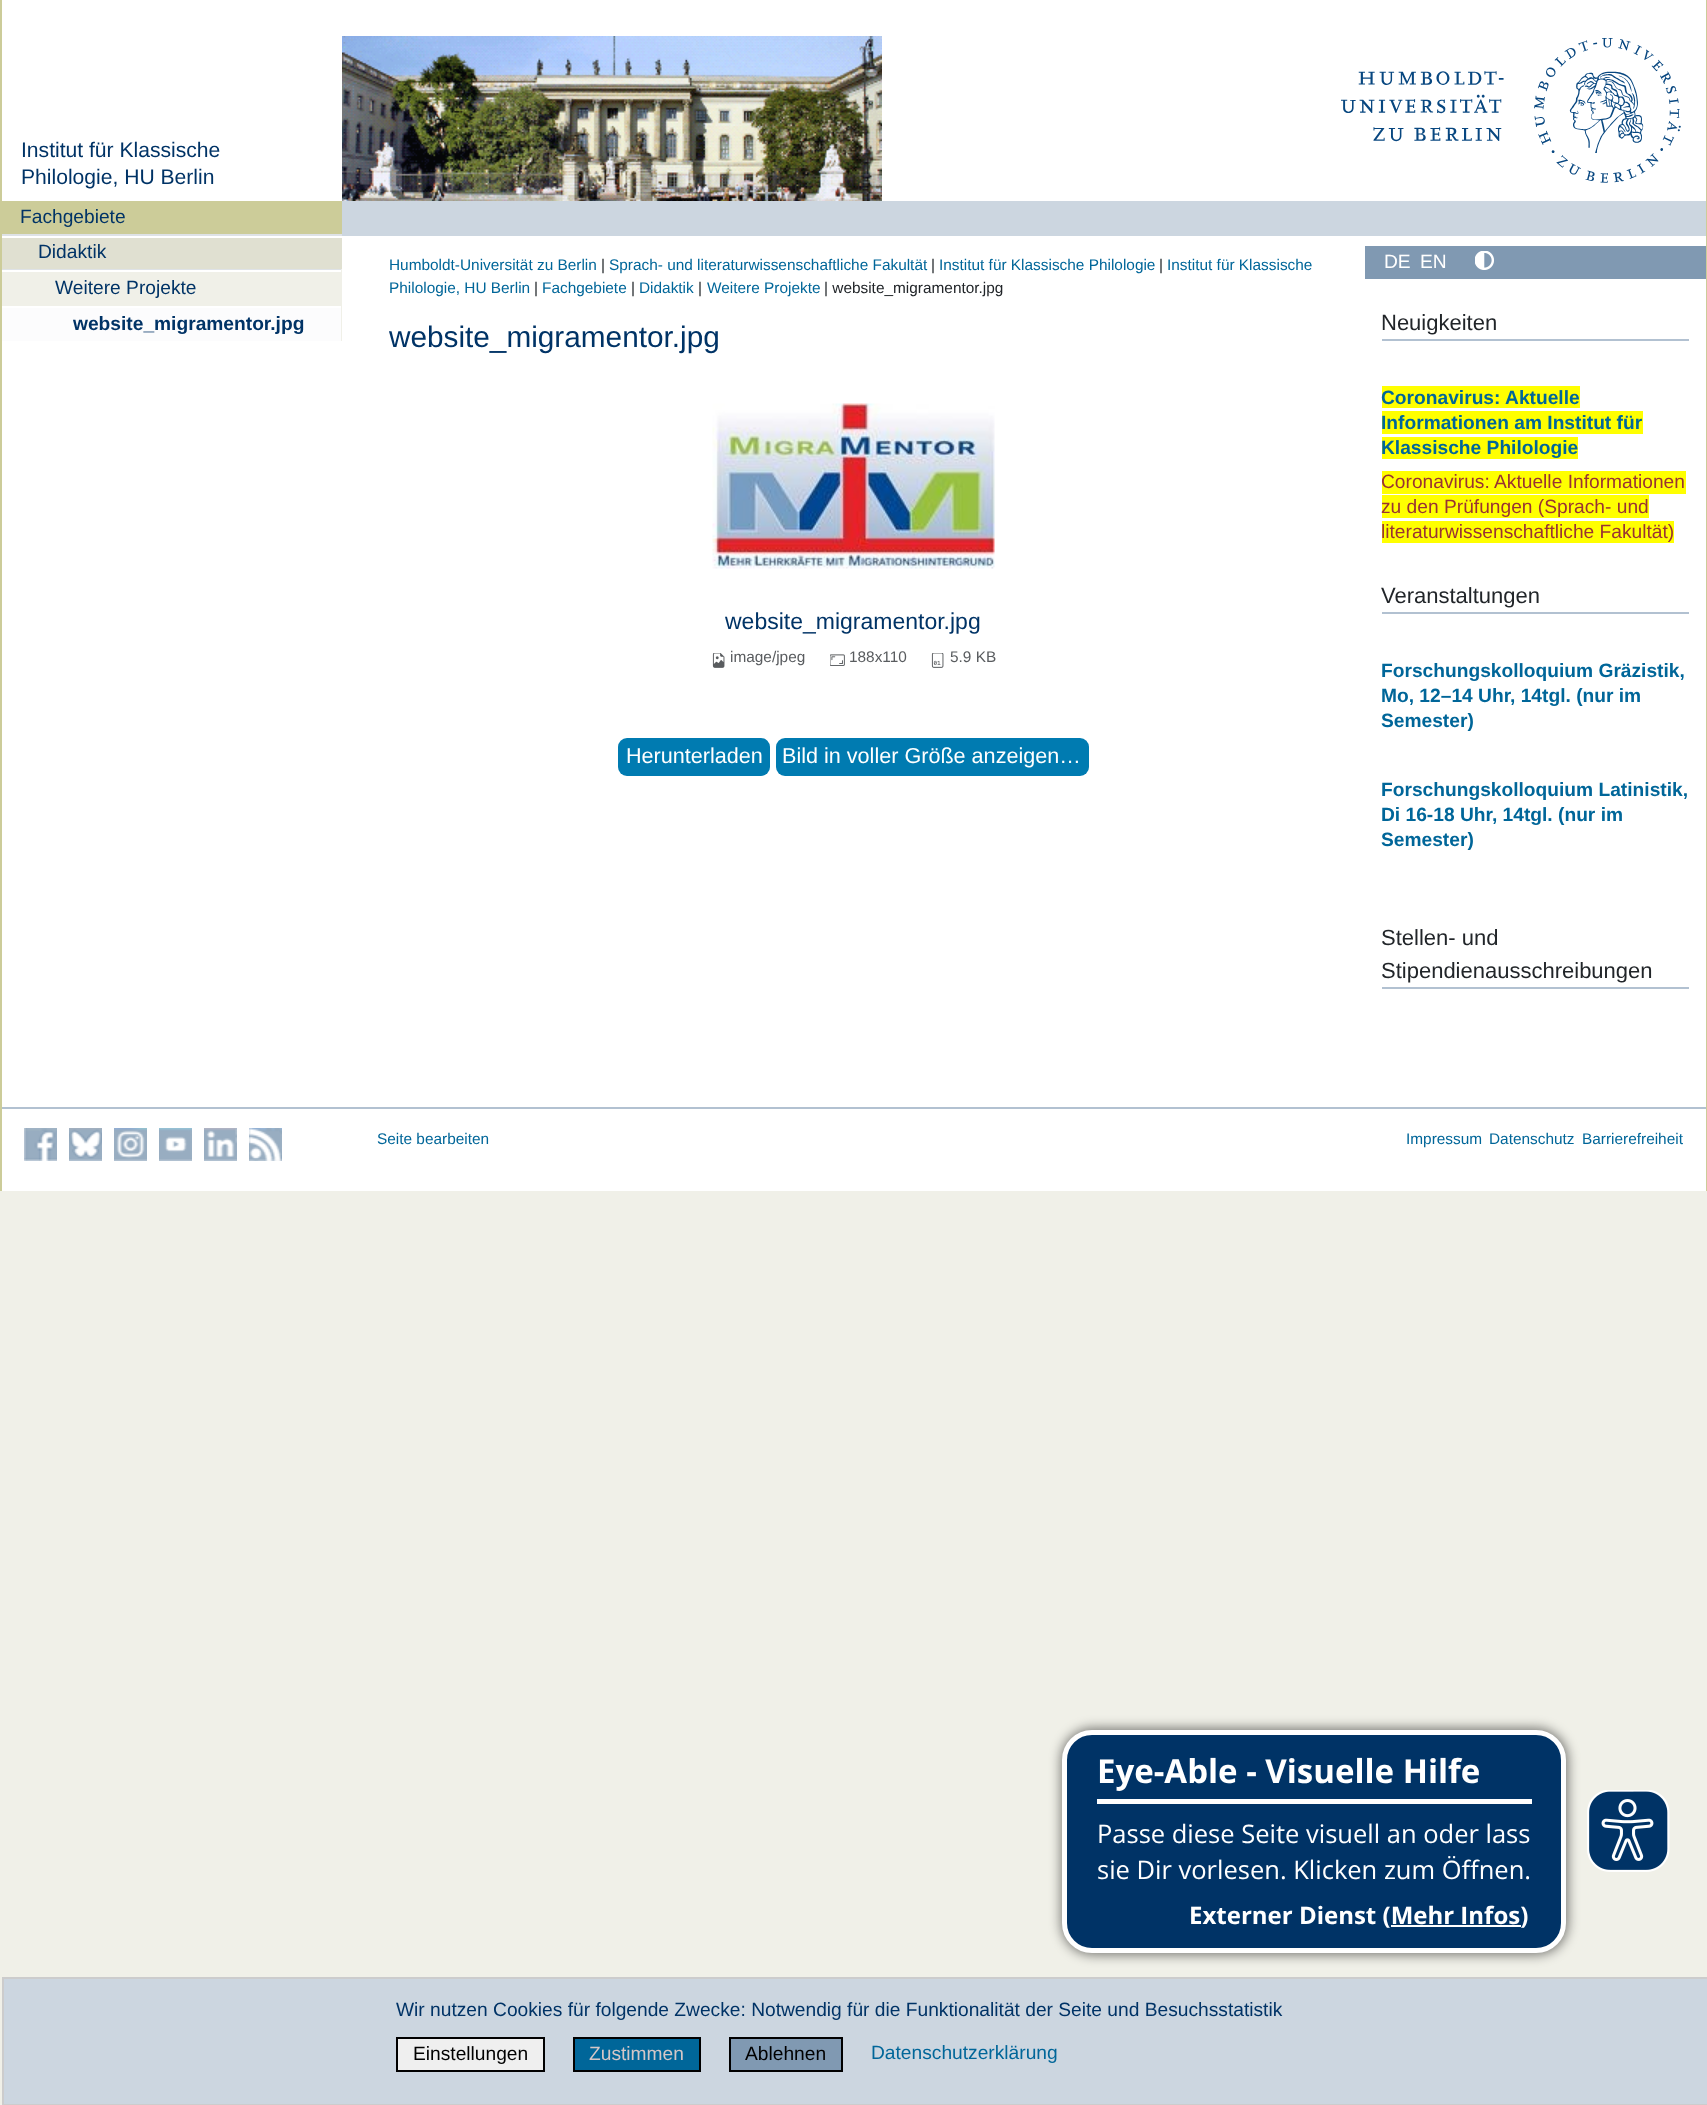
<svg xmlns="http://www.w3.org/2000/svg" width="1707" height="2105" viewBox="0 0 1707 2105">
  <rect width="100%" height="100%" fill="#f0f0e8"/>
  <path d="M2 0h1704v1191H2z" fill="#fff"/>
  <image x="342" y="36" width="540" height="165" href="img/1.png"/>
  <image x="1341" y="38" width="340" height="145" href="img/2.png"/>
  <path d="M1706 0h1v1191H1706z" fill="#cc9"/>
  <path d="M0 0h2v1191H0z" fill="#cc9"/>
  <path d="M2 201h340v33H2z" fill="#cc9"/>
  <path d="M2 238h340v31H2z" fill="#e0e0d1"/>
  <path d="M2 234h340v2H2z" fill="#dee2e6"/>
  <path d="M2 272h339v34H2z" fill="#f0f0e8"/>
  <path d="M2 269h340v1H2z" fill="#dee2e6"/>
  <path d="M341 269h1v72H341z" fill="#f0f0e8"/>
  <path d="M2 308h339v33H2z" fill="#fcfcfd"/>
  <path d="M342 201h1364v35H342z" fill="#ccd6e0"/>
  <image x="712" y="403" width="283" height="166" href="img/3.png"/>
  <image x="712" y="653" width="13" height="15" href="img/4.png"/>
  <image x="830" y="654" width="15" height="12" href="img/5.png"/>
  <image x="931" y="653" width="13" height="15" href="img/6.png"/>
  <rect x="618" y="738" width="152" height="38" rx="9" fill="#007bb1"/>
  <rect x="776" y="738" width="313" height="38" rx="9" fill="#007bb1"/>
  <path d="M1365 246h341v33H1365z" fill="#8099b2"/>
  <image x="1475" y="251" width="19" height="19" href="img/7.png"/>
  <path d="M1382 339h307v2H1382z" fill="#b2c1d1"/>
  <path d="M1382 386h198v22H1382z" fill="#ff0"/>
  <path d="M1382 411h261v23H1382z" fill="#ff0"/>
  <path d="M1382 437h196v22H1382z" fill="#ff0"/>
  <path d="M1382 471h304v23H1382z" fill="#ff0"/>
  <path d="M1382 495h267v23H1382z" fill="#ff0"/>
  <path d="M1382 521h292v22H1382z" fill="#ff0"/>
  <path d="M1382 612h307v2H1382z" fill="#b2c1d1"/>
  <path d="M1382 987h307v2H1382z" fill="#b2c1d1"/>
  <path d="M2 1107h1704v2H2z" fill="#b2c1d1"/>
  <image x="24" y="1128" width="33" height="33" href="img/8.png"/>
  <image x="69" y="1128" width="33" height="33" href="img/9.png"/>
  <image x="114" y="1128" width="33" height="33" href="img/10.png"/>
  <image x="159" y="1128" width="33" height="33" href="img/11.png"/>
  <image x="204" y="1128" width="33" height="33" href="img/12.png"/>
  <image x="249" y="1128" width="33" height="33" href="img/13.png"/>
  <path d="M3 1978h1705v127H3z" fill="#ccd6e0" stroke="#ccc" stroke-width="2"/>
  <path d="M397 2038h147v33H397z" fill="#efefef" stroke="#000" stroke-width="2"/>
  <path d="M574 2038h126v33H574z" fill="#069" stroke="#000" stroke-width="2"/>
  <path d="M730 2038h112v33H730z" fill="#8099b2" stroke="#000" stroke-width="2"/>
  <rect x="1061" y="1728" width="507" height="227" rx="32" fill="#00000080" filter="blur(6px)"/>
  <rect x="1064.5" y="1732.5" width="499" height="218" rx="27.5" fill="#036" stroke="#fff" stroke-width="5"/>
  <path d="M1097 1799h435v5H1097z" fill="#fff"/>
  <path d="M1391 1925h130v2H1391z" fill="#fff"/>
  <image x="1587" y="1790" width="83" height="82" href="img/14.png"/>
  <g font-family="Liberation Sans" font-size="21.1" fill="#036">
    <text x="21" y="157">Institut für Klassische</text>
    <text x="21" y="184">Philologie, HU Berlin</text>
  </g>
  <g font-family="Liberation Sans" font-size="19.2" fill="#036">
    <text x="20" y="223">Fachgebiete</text>
    <text x="38" y="258">Didaktik</text>
    <text x="55" y="294">Weitere Projekte</text>
  </g>
  <text x="73" y="330" font-family="Liberation Sans" font-size="19.2" font-weight="bold" fill="#036">website_migramentor.jpg</text>
  <text x="389" y="270" font-family="Liberation Sans" font-size="15.4" fill="#069">Humboldt-Universität zu Berlin</text>
  <text x="601" y="270" font-family="Liberation Sans" font-size="15.4" fill="#212529">|</text>
  <text x="609" y="270" font-family="Liberation Sans" font-size="15.4" fill="#069">Sprach- und literaturwissenschaftliche Fakultät</text>
  <text x="931" y="270" font-family="Liberation Sans" font-size="15.4" fill="#212529">|</text>
  <text x="939" y="270" font-family="Liberation Sans" font-size="15.4" fill="#069">Institut für Klassische Philologie</text>
  <text x="1159" y="270" font-family="Liberation Sans" font-size="15.4" fill="#212529">|</text>
  <g font-family="Liberation Sans" font-size="15.4" fill="#069">
    <text x="1167" y="270">Institut für Klassische</text>
    <text x="389" y="293">Philologie, HU Berlin</text>
  </g>
  <text x="534" y="293" font-family="Liberation Sans" font-size="15.4" fill="#212529">|</text>
  <text x="542" y="293" font-family="Liberation Sans" font-size="15.4" fill="#069">Fachgebiete</text>
  <text x="631" y="293" font-family="Liberation Sans" font-size="15.4" fill="#212529">|</text>
  <text x="639" y="293" font-family="Liberation Sans" font-size="15.4" fill="#069">Didaktik</text>
  <text x="698" y="293" font-family="Liberation Sans" font-size="15.4" fill="#212529">|</text>
  <text x="707" y="293" font-family="Liberation Sans" font-size="15.4" fill="#069">Weitere Projekte</text>
  <text x="824" y="293" font-family="Liberation Sans" font-size="15.4" fill="#212529">| website_migramentor.jpg</text>
  <text x="389" y="347" font-family="Liberation Sans" font-size="29.75" fill="#036">website_migramentor.jpg</text>
  <text x="725" y="629" font-family="Liberation Sans" font-size="23" fill="#036">website_migramentor.jpg</text>
  <g font-family="Liberation Sans" font-size="15.4" fill="#595c5f">
    <text x="730" y="662">image/jpeg</text>
    <text x="849" y="662">188x110</text>
    <text x="950" y="662">5.9 KB</text>
  </g>
  <g font-family="Liberation Sans" font-size="21.6" fill="#fff">
    <text x="626" y="763">Herunterladen</text>
    <text x="782" y="763">Bild in voller Größe anzeigen…</text>
  </g>
  <g font-family="Liberation Sans" font-size="19.2" fill="#fff">
    <text x="1384" y="268">DE</text>
    <text x="1420" y="268">EN</text>
  </g>
  <text x="1381" y="330" font-family="Liberation Sans" font-size="22" fill="#212529">Neuigkeiten</text>
  <g font-family="Liberation Sans" font-size="19.2" font-weight="bold" fill="#069">
    <text x="1381" y="404">Coronavirus: Aktuelle</text>
    <text x="1381" y="429">Informationen am Institut für</text>
    <text x="1381" y="454">Klassische Philologie</text>
  </g>
  <g font-family="Liberation Sans" font-size="19.2" fill="#933">
    <text x="1381" y="488">Coronavirus: Aktuelle Informationen</text>
    <text x="1381" y="513">zu den Prüfungen (Sprach- und</text>
    <text x="1381" y="538">literaturwissenschaftliche Fakultät)</text>
  </g>
  <text x="1381" y="603" font-family="Liberation Sans" font-size="22" fill="#212529">Veranstaltungen</text>
  <g font-family="Liberation Sans" font-size="19.2" font-weight="bold" fill="#069">
    <text x="1381" y="677">Forschungskolloquium Gräzistik,</text>
    <text x="1381" y="702">Mo, 12–14 Uhr, 14tgl. (nur im</text>
    <text x="1381" y="727">Semester)</text>
    <text x="1381" y="796">Forschungskolloquium Latinistik,</text>
    <text x="1381" y="821">Di 16-18 Uhr, 14tgl. (nur im</text>
    <text x="1381" y="846">Semester)</text>
  </g>
  <g font-family="Liberation Sans" font-size="22" fill="#212529">
    <text x="1381" y="945">Stellen- und</text>
    <text x="1381" y="978">Stipendienausschreibungen</text>
  </g>
  <g font-family="Liberation Sans" font-size="15.4" fill="#069">
    <text x="377" y="1144">Seite bearbeiten</text>
    <text x="1406" y="1144">Impressum</text>
    <text x="1489" y="1144">Datenschutz</text>
    <text x="1582" y="1144">Barrierefreiheit</text>
  </g>
  <text x="396" y="2016" font-family="Liberation Sans" font-size="19.2" fill="#036">Wir nutzen Cookies für folgende Zwecke: Notwendig für die Funktionalität der Seite und Besuchsstatistik</text>
  <text x="413" y="2060" font-family="Liberation Sans" font-size="19.2" fill="#000">Einstellungen</text>
  <text x="589" y="2060" font-family="Liberation Sans" font-size="19.2" fill="#d5c7c7">Zustimmen</text>
  <text x="745" y="2060" font-family="Liberation Sans" font-size="19.2" fill="#000">Ablehnen</text>
  <text x="871" y="2059" font-family="Liberation Sans" font-size="19.2" fill="#069">Datenschutzerklärung</text>
  <text x="1097" y="1783" font-family="Open Sans" font-size="33" font-weight="bold" fill="#fff">Eye-Able - Visuelle Hilfe</text>
  <g font-family="Open Sans" font-size="25.5" fill="#fff">
    <text x="1097" y="1843">Passe diese Seite visuell an oder lass</text>
    <text x="1097" y="1879">sie Dir vorlesen. Klicken zum Öffnen.</text>
  </g>
  <text x="1189" y="1924" font-family="Open Sans" font-size="24" font-weight="bold" fill="#fff">Externer Dienst (Mehr Infos)</text>
</svg>
